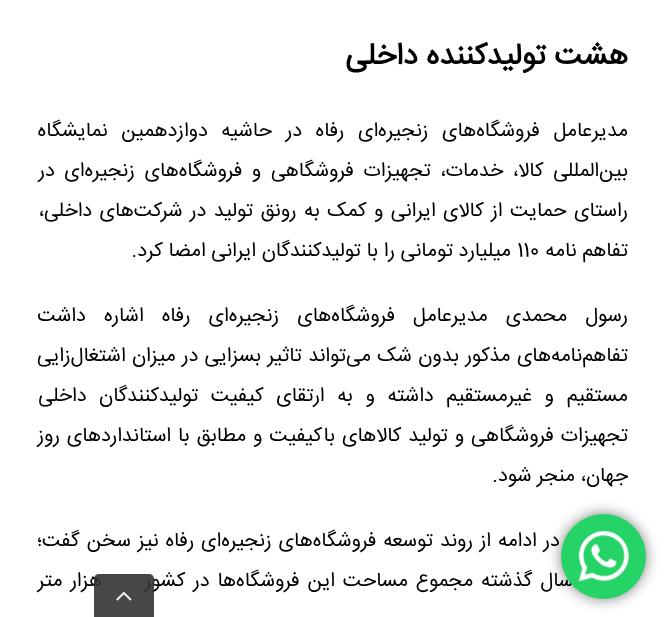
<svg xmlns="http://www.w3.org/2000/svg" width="665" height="617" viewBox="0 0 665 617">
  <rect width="100%" height="100%" fill="#fff"/>
  <rect x="561" y="514" width="85" height="85" rx="42.5" fill="#00000080" filter="blur(7px)"/>
  <text x="628" y="64" font-family="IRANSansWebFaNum" font-size="30" font-weight="bold" direction="rtl" fill="#000">هشت تولیدکننده داخلی</text>
  <g font-family="IRANSansWebFaNum" font-size="20" direction="rtl" fill="#000">
    <text x="628" y="136" word-spacing="8">مدیرعامل فروشگاه‌های زنجیره‌ای رفاه در حاشیه دوازدهمین نمایشگاه</text>
    <text x="628" y="176" word-spacing="4">بین‌المللی کالا، خدمات، تجهیزات فروشگاهی و فروشگاه‌های زنجیره‌ای در</text>
    <text x="628" y="216" word-spacing="1.8">راستای حمایت از کالای ایرانی و کمک به رونق تولید در شرکت‌های داخلی،</text>
    <text x="628" y="256">تفاهم نامه</text>
  </g>
  <text x="517" y="256" font-family="IRANSansWebFaNum" font-size="20" fill="#000">110</text>
  <g font-family="IRANSansWebFaNum" font-size="20" direction="rtl" fill="#000">
    <text x="511" y="256">میلیارد تومانی را با تولیدکنندگان ایرانی امضا کرد.</text>
    <text x="628" y="321" word-spacing="12.5">رسول محمدی مدیرعامل فروشگاه‌های زنجیره‌ای رفاه اشاره داشت</text>
    <text x="628" y="361" word-spacing="0.75">تفاهم‌نامه‌های مذکور بدون شک می‌تواند تاثیر بسزایی در میزان اشتغال‌زایی</text>
    <text x="628" y="401" word-spacing="7">مستقیم و غیرمستقیم داشته و به ارتقای کیفیت تولیدکنندگان داخلی</text>
    <text x="628" y="441" word-spacing="1.25">تجهیزات فروشگاهی و تولید کالاهای باکیفیت و مطابق با استانداردهای روز</text>
    <text x="628" y="481">جهان، منجر شود.</text>
    <text x="628" y="546" word-spacing="1.25">محمدی در ادامه از روند توسعه فروشگاه‌های زنجیره‌ای رفاه نیز سخن گفت؛</text>
    <text x="573" y="586" word-spacing="2.25">سال گذشته مجموع مساحت این فروشگاه‌ها در کشور</text>
    <text x="102" y="586" word-spacing="2.25">هزار متر</text>
  </g>
  <circle cx="603.5" cy="556.5" r="42.5" fill="#25d366"/>
  <image x="578" y="531" width="51" height="51" href="img/1.png"/>
  <path d="M99 574H149C152 574 154 576 154 579V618H94V579C94 576 96 574 99 574Z" fill="#333333e6"/>
  <image x="116" y="591" width="16" height="10" href="img/2.png"/>
</svg>
